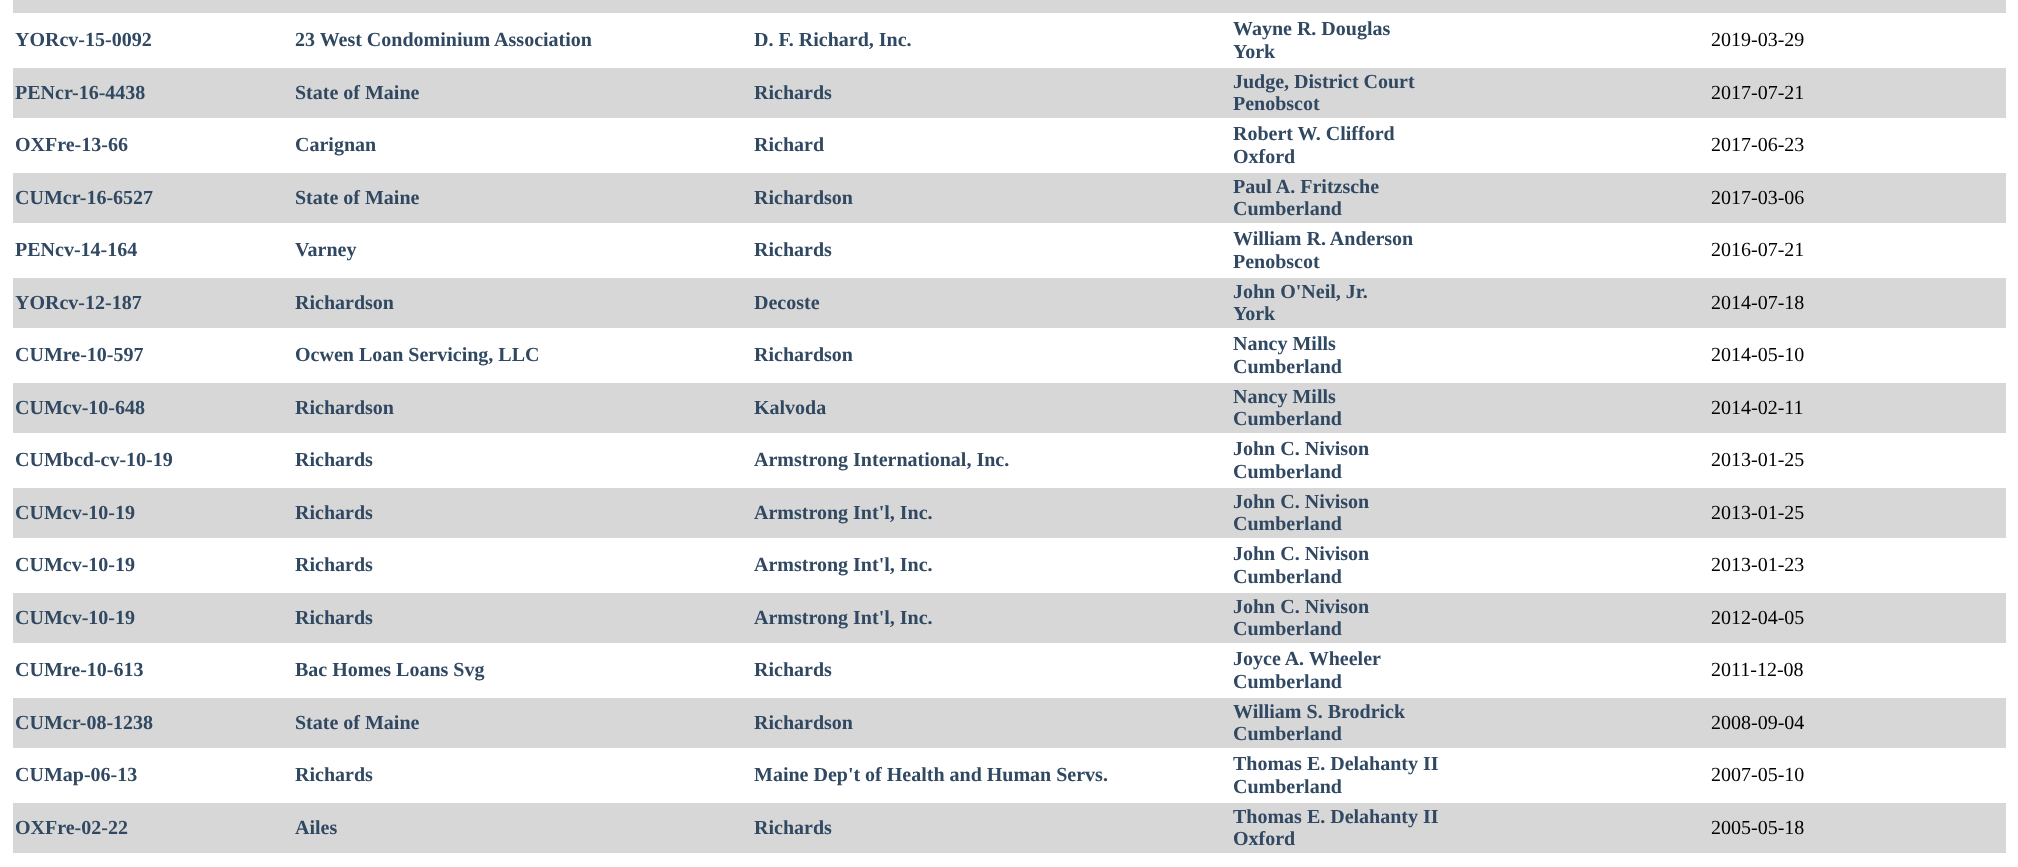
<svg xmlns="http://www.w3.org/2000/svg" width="2018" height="867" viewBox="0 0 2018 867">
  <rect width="100%" height="100%" fill="#fff"/>
  <path d="M13 0h1993v13H13z" fill="#d7d7d7"/>
  <path d="M13 68h1993v50H13z" fill="#d7d7d7"/>
  <path d="M13 173h1993v50H13z" fill="#d7d7d7"/>
  <path d="M13 278h1993v50H13z" fill="#d7d7d7"/>
  <path d="M13 383h1993v50H13z" fill="#d7d7d7"/>
  <path d="M13 488h1993v50H13z" fill="#d7d7d7"/>
  <path d="M13 593h1993v50H13z" fill="#d7d7d7"/>
  <path d="M13 698h1993v50H13z" fill="#d7d7d7"/>
  <path d="M13 803h1993v50H13z" fill="#d7d7d7"/>
  <g font-family="Liberation Serif" font-size="20" font-weight="bold" fill="#304861">
    <text x="15" y="46">YORcv-15-0092</text>
    <text x="295" y="46">23 West Condominium Association</text>
    <text x="754" y="46">D. F. Richard, Inc.</text>
    <text x="1233" y="35">Wayne R. Douglas</text>
    <text x="1233" y="58">York</text>
  </g>
  <text x="1711" y="46" font-family="Liberation Serif" font-size="20" fill="#000">2019-03-29</text>
  <g font-family="Liberation Serif" font-size="20" font-weight="bold" fill="#304861">
    <text x="15" y="99">PENcr-16-4438</text>
    <text x="295" y="99">State of Maine</text>
    <text x="754" y="99">Richards</text>
    <text x="1233" y="88">Judge, District Court</text>
    <text x="1233" y="110">Penobscot</text>
  </g>
  <text x="1711" y="99" font-family="Liberation Serif" font-size="20" fill="#000">2017-07-21</text>
  <g font-family="Liberation Serif" font-size="20" font-weight="bold" fill="#304861">
    <text x="15" y="151">OXFre-13-66</text>
    <text x="295" y="151">Carignan</text>
    <text x="754" y="151">Richard</text>
    <text x="1233" y="140">Robert W. Clifford</text>
    <text x="1233" y="163">Oxford</text>
  </g>
  <text x="1711" y="151" font-family="Liberation Serif" font-size="20" fill="#000">2017-06-23</text>
  <g font-family="Liberation Serif" font-size="20" font-weight="bold" fill="#304861">
    <text x="15" y="204">CUMcr-16-6527</text>
    <text x="295" y="204">State of Maine</text>
    <text x="754" y="204">Richardson</text>
    <text x="1233" y="193">Paul A. Fritzsche</text>
    <text x="1233" y="215">Cumberland</text>
  </g>
  <text x="1711" y="204" font-family="Liberation Serif" font-size="20" fill="#000">2017-03-06</text>
  <g font-family="Liberation Serif" font-size="20" font-weight="bold" fill="#304861">
    <text x="15" y="256">PENcv-14-164</text>
    <text x="295" y="256">Varney</text>
    <text x="754" y="256">Richards</text>
    <text x="1233" y="245">William R. Anderson</text>
    <text x="1233" y="268">Penobscot</text>
  </g>
  <text x="1711" y="256" font-family="Liberation Serif" font-size="20" fill="#000">2016-07-21</text>
  <g font-family="Liberation Serif" font-size="20" font-weight="bold" fill="#304861">
    <text x="15" y="309">YORcv-12-187</text>
    <text x="295" y="309">Richardson</text>
    <text x="754" y="309">Decoste</text>
    <text x="1233" y="298">John O'Neil, Jr.</text>
    <text x="1233" y="320">York</text>
  </g>
  <text x="1711" y="309" font-family="Liberation Serif" font-size="20" fill="#000">2014-07-18</text>
  <g font-family="Liberation Serif" font-size="20" font-weight="bold" fill="#304861">
    <text x="15" y="361">CUMre-10-597</text>
    <text x="295" y="361">Ocwen Loan Servicing, LLC</text>
    <text x="754" y="361">Richardson</text>
    <text x="1233" y="350">Nancy Mills</text>
    <text x="1233" y="373">Cumberland</text>
  </g>
  <text x="1711" y="361" font-family="Liberation Serif" font-size="20" fill="#000">2014-05-10</text>
  <g font-family="Liberation Serif" font-size="20" font-weight="bold" fill="#304861">
    <text x="15" y="414">CUMcv-10-648</text>
    <text x="295" y="414">Richardson</text>
    <text x="754" y="414">Kalvoda</text>
    <text x="1233" y="403">Nancy Mills</text>
    <text x="1233" y="425">Cumberland</text>
  </g>
  <text x="1711" y="414" font-family="Liberation Serif" font-size="20" fill="#000">2014-02-11</text>
  <g font-family="Liberation Serif" font-size="20" font-weight="bold" fill="#304861">
    <text x="15" y="466">CUMbcd-cv-10-19</text>
    <text x="295" y="466">Richards</text>
    <text x="754" y="466">Armstrong International, Inc.</text>
    <text x="1233" y="455">John C. Nivison</text>
    <text x="1233" y="478">Cumberland</text>
  </g>
  <text x="1711" y="466" font-family="Liberation Serif" font-size="20" fill="#000">2013-01-25</text>
  <g font-family="Liberation Serif" font-size="20" font-weight="bold" fill="#304861">
    <text x="15" y="519">CUMcv-10-19</text>
    <text x="295" y="519">Richards</text>
    <text x="754" y="519">Armstrong Int'l, Inc.</text>
    <text x="1233" y="508">John C. Nivison</text>
    <text x="1233" y="530">Cumberland</text>
  </g>
  <text x="1711" y="519" font-family="Liberation Serif" font-size="20" fill="#000">2013-01-25</text>
  <g font-family="Liberation Serif" font-size="20" font-weight="bold" fill="#304861">
    <text x="15" y="571">CUMcv-10-19</text>
    <text x="295" y="571">Richards</text>
    <text x="754" y="571">Armstrong Int'l, Inc.</text>
    <text x="1233" y="560">John C. Nivison</text>
    <text x="1233" y="583">Cumberland</text>
  </g>
  <text x="1711" y="571" font-family="Liberation Serif" font-size="20" fill="#000">2013-01-23</text>
  <g font-family="Liberation Serif" font-size="20" font-weight="bold" fill="#304861">
    <text x="15" y="624">CUMcv-10-19</text>
    <text x="295" y="624">Richards</text>
    <text x="754" y="624">Armstrong Int'l, Inc.</text>
    <text x="1233" y="613">John C. Nivison</text>
    <text x="1233" y="635">Cumberland</text>
  </g>
  <text x="1711" y="624" font-family="Liberation Serif" font-size="20" fill="#000">2012-04-05</text>
  <g font-family="Liberation Serif" font-size="20" font-weight="bold" fill="#304861">
    <text x="15" y="676">CUMre-10-613</text>
    <text x="295" y="676">Bac Homes Loans Svg</text>
    <text x="754" y="676">Richards</text>
    <text x="1233" y="665">Joyce A. Wheeler</text>
    <text x="1233" y="688">Cumberland</text>
  </g>
  <text x="1711" y="676" font-family="Liberation Serif" font-size="20" fill="#000">2011-12-08</text>
  <g font-family="Liberation Serif" font-size="20" font-weight="bold" fill="#304861">
    <text x="15" y="729">CUMcr-08-1238</text>
    <text x="295" y="729">State of Maine</text>
    <text x="754" y="729">Richardson</text>
    <text x="1233" y="718">William S. Brodrick</text>
    <text x="1233" y="740">Cumberland</text>
  </g>
  <text x="1711" y="729" font-family="Liberation Serif" font-size="20" fill="#000">2008-09-04</text>
  <g font-family="Liberation Serif" font-size="20" font-weight="bold" fill="#304861">
    <text x="15" y="781">CUMap-06-13</text>
    <text x="295" y="781">Richards</text>
    <text x="754" y="781">Maine Dep't of Health and Human Servs.</text>
    <text x="1233" y="770">Thomas E. Delahanty II</text>
    <text x="1233" y="793">Cumberland</text>
  </g>
  <text x="1711" y="781" font-family="Liberation Serif" font-size="20" fill="#000">2007-05-10</text>
  <g font-family="Liberation Serif" font-size="20" font-weight="bold" fill="#304861">
    <text x="15" y="834">OXFre-02-22</text>
    <text x="295" y="834">Ailes</text>
    <text x="754" y="834">Richards</text>
    <text x="1233" y="823">Thomas E. Delahanty II</text>
    <text x="1233" y="845">Oxford</text>
  </g>
  <text x="1711" y="834" font-family="Liberation Serif" font-size="20" fill="#000">2005-05-18</text>
</svg>
